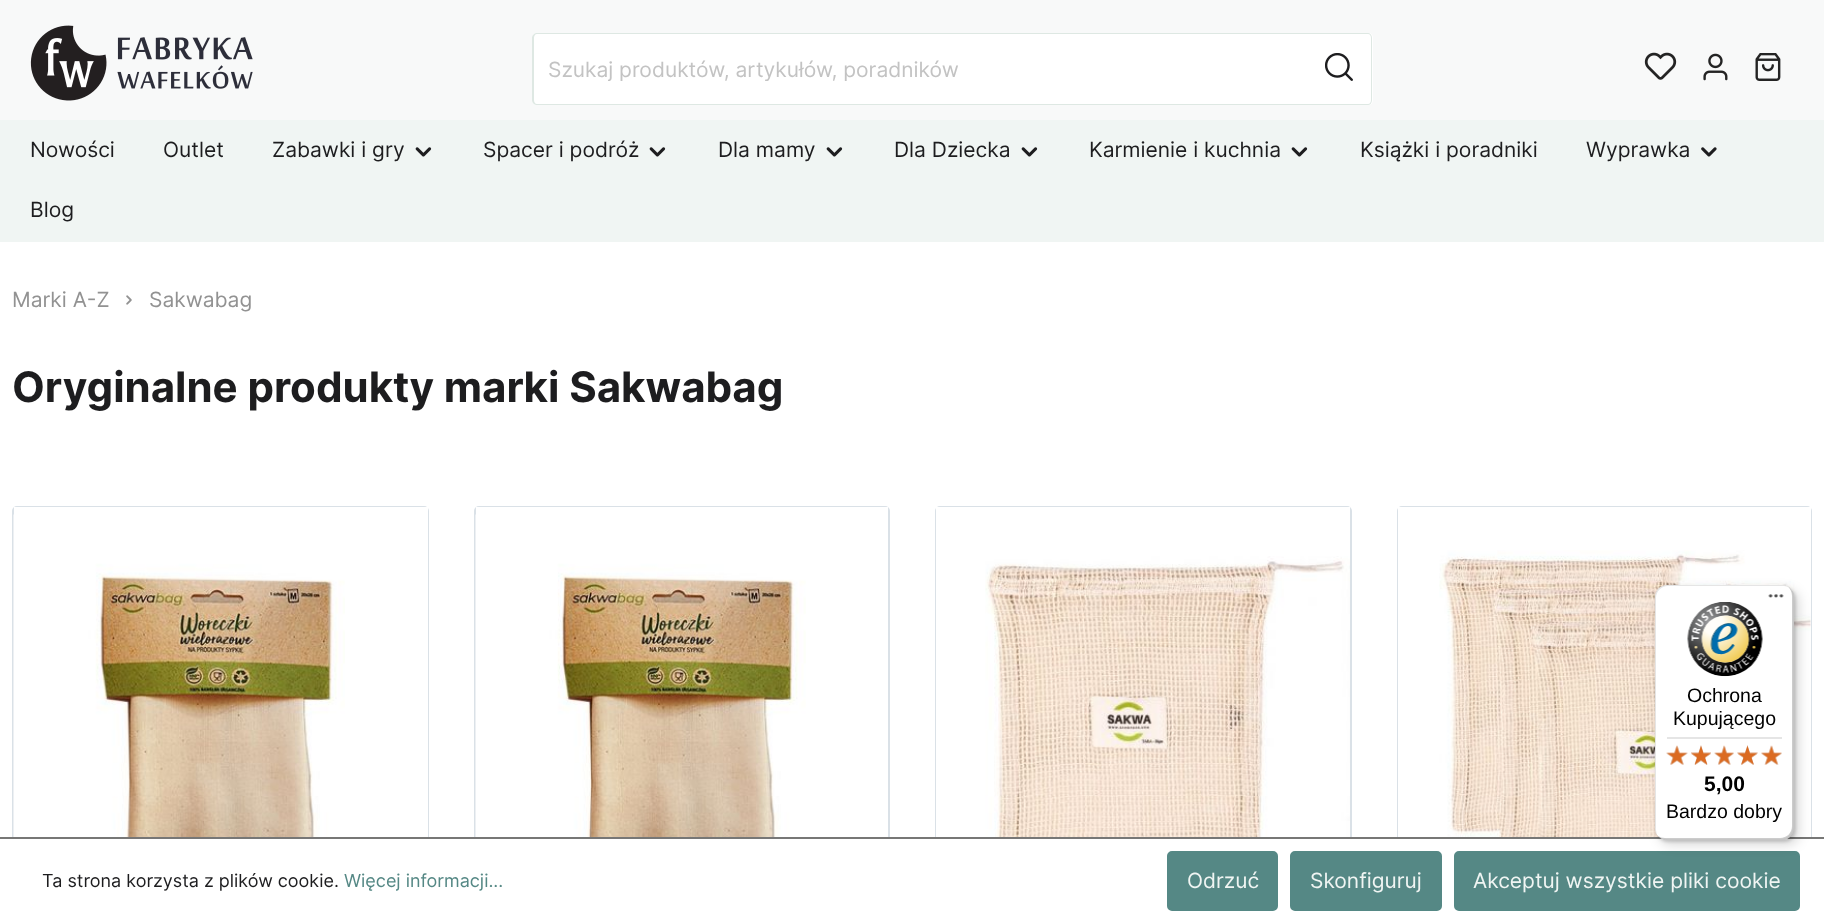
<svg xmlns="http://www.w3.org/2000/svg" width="1824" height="922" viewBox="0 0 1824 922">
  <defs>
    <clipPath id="clip1"><path d="M548 56h747v25H548z"/></clipPath>
  </defs>
  <rect width="100%" height="100%" fill="#fff"/>
  <path d="M0 0h1824v120H0z" fill="#f8f9f9"/>
  <image x="30" y="25" width="223" height="76" href="img/1.png"/>
  <path d="M538 33H1308V105H538C535 105 533 103 533 100V38C533 35 535 33 538 33Z" fill="#fff"/>
  <path d="M537 33H1308V105H537C535 105 532 103 532 100V38C532 35 535 33 537 33ZM537 34H1308V104H537C535 104 534 102 534 100V38C534 36 535 34 537 34Z" fill="#dee8e3" fill-rule="evenodd"/>
  <path d="M1307 33H1368C1371 33 1373 35 1373 38V100C1373 103 1371 105 1368 105H1307Z" fill="#fff"/>
  <path d="M1306 33H1368C1370 33 1372 35 1372 38V100C1372 103 1370 105 1368 105H1306ZM1306 34H1368C1370 34 1371 36 1371 38V100C1371 102 1370 104 1368 104H1306Z" fill="#dee8e3" fill-rule="evenodd"/>
  <image x="1325" y="53" width="28" height="28" href="img/2.png"/>
  <image x="1644" y="52" width="33" height="28" href="img/3.png"/>
  <image x="1703" y="53" width="25" height="28" href="img/4.png"/>
  <image x="1755" y="53" width="26" height="28" href="img/5.png"/>
  <path d="M0 120h1824v122H0z" fill="#f0f5f3"/>
  <image x="415" y="147" width="17" height="10" href="img/6.png"/>
  <image x="649" y="147" width="17" height="10" href="img/6.png"/>
  <image x="826" y="147" width="17" height="10" href="img/6.png"/>
  <image x="1021" y="147" width="17" height="10" href="img/6.png"/>
  <image x="1291" y="147" width="17" height="10" href="img/6.png"/>
  <image x="1701" y="147" width="16" height="10" href="img/7.png"/>
  <image x="126" y="295" width="6" height="10" href="img/8.png"/>
  <rect x="13" y="507" width="415" height="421" rx="4" fill="none" stroke="#dae1e7" stroke-width="2"/>
  <path d="M14 507h414v330H14z" fill="#fff"/>
  <image x="13" y="514" width="332" height="323" href="img/9.png"/>
  <rect x="475" y="507" width="414" height="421" rx="4" fill="none" stroke="#dae1e7" stroke-width="2"/>
  <path d="M476 507h412v4H476z" fill="#fff"/>
  <image x="475" y="514" width="331" height="323" href="img/10.png"/>
  <rect x="936" y="507" width="415" height="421" rx="4" fill="none" stroke="#dae1e7" stroke-width="2"/>
  <path d="M936 507h414v330H936z" fill="#fff"/>
  <image x="985" y="556" width="365" height="281" href="img/11.png"/>
  <rect x="1398" y="507" width="413" height="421" rx="4" fill="none" stroke="#dae1e7" stroke-width="2"/>
  <path d="M1398 507h413v330H1398z" fill="#fff"/>
  <image x="1439" y="550" width="372" height="287" href="img/12.png"/>
  <path d="M12 839h1800v83H12z" fill="#fff"/>
  <path d="M0 837h1824v2H0z" fill="#777776"/>
  <rect x="1455" y="852" width="344" height="58" rx="4" fill="#558885" stroke="#558885" stroke-width="2"/>
  <rect x="1659" y="590" width="140" height="255" rx="12" fill="#00000026" filter="blur(6px)"/>
  <rect x="1656" y="587" width="140" height="255" rx="12" fill="#00000026" filter="blur(1.5px)"/>
  <rect x="1655" y="585" width="139" height="255" rx="12" fill="#fff"/>
  <path d="M1668 586H1784C1786 586 1788 587 1789 588C1787 586 1785 585 1782 585H1667C1660 585 1655 590 1655 597V828C1655 830 1656 833 1657 835L1656 830V598C1656 592 1661 586 1668 586Z" fill="#0000001a"/>
  <path d="M1658 836C1660 838 1663 840 1667 840H1782C1789 840 1794 835 1794 828V597C1794 592 1791 588 1787 586C1790 588 1792 592 1792 596V826C1792 833 1787 838 1780 838H1665C1662 838 1660 837 1658 836Z" fill="#00000033"/>
  <path d="M1659 837C1661 839 1664 840 1667 840H1782C1789 840 1794 835 1794 828V597C1794 594 1793 591 1791 589C1792 591 1793 593 1793 596V827C1793 834 1788 839 1781 839H1666C1663 839 1661 838 1659 837Z" fill="#32323233"/>
  <path d="M1659 837C1661 839 1664 840 1667 840H1782C1789 840 1794 835 1794 828V597C1794 593 1792 590 1790 588C1792 590 1793 593 1793 596V827C1793 834 1788 839 1781 839H1666C1663 839 1661 838 1659 837Z" fill="#ffffff4d"/>
  <image x="1768" y="594" width="16" height="4" href="img/13.png"/>
  <image x="1687" y="602" width="76" height="75" href="img/14.png"/>
  <path d="M1667 737h115v2H1667z" fill="#e5e5e5"/>
  <image x="1666" y="746" width="22" height="19" href="img/15.png"/>
  <image x="1691" y="745" width="20" height="20" href="img/16.png"/>
  <image x="1714" y="746" width="20" height="19" href="img/17.png"/>
  <image x="1737" y="745" width="21" height="20" href="img/18.png"/>
  <image x="1761" y="746" width="21" height="19" href="img/19.png"/>
  <image x="1666" y="745" width="22" height="20" href="img/20.png"/>
  <image x="1691" y="745" width="20" height="20" href="img/21.png"/>
  <image x="1714" y="745" width="20" height="20" href="img/22.png"/>
  <image x="1737" y="745" width="21" height="20" href="img/23.png"/>
  <image x="1761" y="745" width="21" height="20" href="img/24.png"/>
  <rect x="1168" y="852" width="109" height="58" rx="4" fill="#558885" stroke="#558885" stroke-width="2"/>
  <rect x="1291" y="852" width="150" height="58" rx="4" fill="#558885" stroke="#558885" stroke-width="2"/>
  <g clip-path="url(#clip1)">
    <text x="548" y="77" font-family="Inter" font-size="21" fill="#c3c3c3">Szukaj produktów, artykułów, poradników</text>
  </g>
  <g font-family="Inter" font-size="21" fill="#1d1d1f">
    <text x="30" y="157">Nowości</text>
    <text x="163" y="157">Outlet</text>
    <text x="272" y="157">Zabawki i gry</text>
    <text x="483" y="157">Spacer i podróż</text>
    <text x="718" y="157">Dla mamy</text>
    <text x="894" y="157">Dla Dziecka</text>
    <text x="1089" y="157">Karmienie i kuchnia</text>
    <text x="1360" y="157">Książki i poradniki</text>
    <text x="1586" y="157">Wyprawka</text>
    <text x="30" y="217">Blog</text>
  </g>
  <g font-family="Inter" font-size="21" fill="#929292">
    <text x="12" y="307">Marki A-Z</text>
    <text x="149" y="307">Sakwabag</text>
  </g>
  <text x="12" y="402" font-family="Inter" font-size="42" font-weight="bold" fill="#1d1d1f">Oryginalne produkty marki Sakwabag</text>
  <g font-family="Liberation Sans" font-size="19.5" fill="#000">
    <text x="1687" y="702">Ochrona</text>
    <text x="1673" y="725">Kupującego</text>
  </g>
  <text x="1704" y="791" font-family="Liberation Sans" font-size="21" font-weight="bold" fill="#000">5,00</text>
  <text x="1666" y="818" font-family="Liberation Sans" font-size="19.5" fill="#000">Bardzo dobry</text>
  <text x="42" y="887" font-family="Inter" font-size="18" fill="#1d1d1f">Ta strona korzysta z plików cookie.</text>
  <text x="344" y="887" font-family="Inter" font-size="18" fill="#558885">Więcej informacji...</text>
  <g font-family="Inter" font-size="21" fill="#f0f5f3">
    <text x="1187" y="888">Odrzuć</text>
    <text x="1310" y="888">Skonfiguruj</text>
    <text x="1473" y="888">Akceptuj wszystkie pliki cookie</text>
  </g>
</svg>
